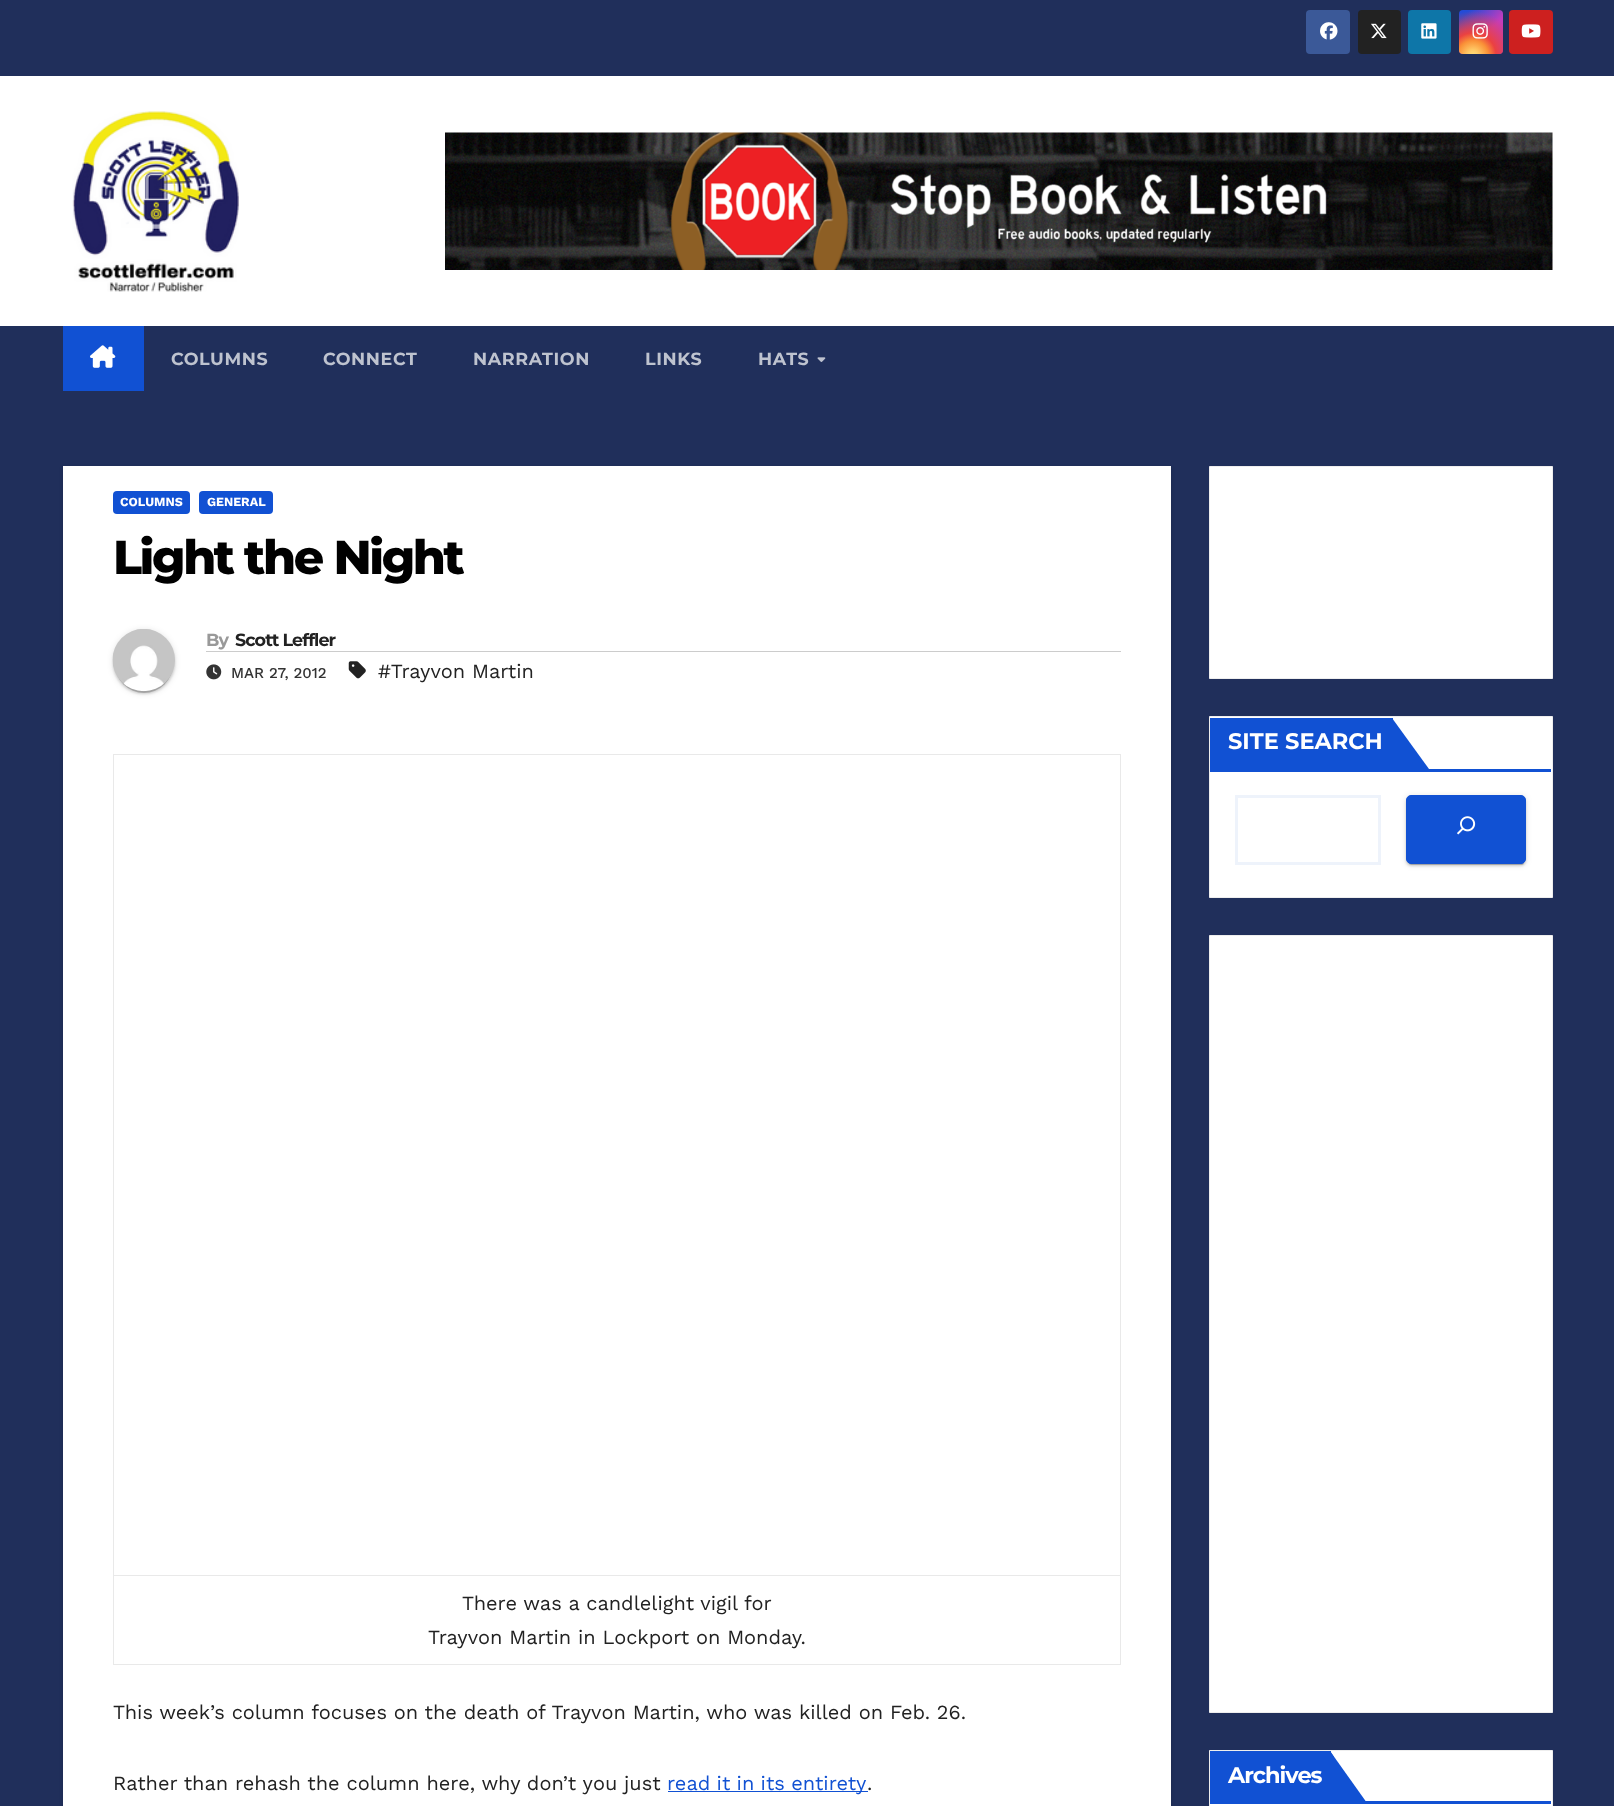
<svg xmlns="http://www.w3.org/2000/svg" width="1614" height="1806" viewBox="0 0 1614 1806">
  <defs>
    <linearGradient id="g1" gradientUnits="userSpaceOnUse" x1="1459" y1="10" x2="1503" y2="54"><stop offset="0.12" stop-color="#234bd7"/><stop offset="0.58" stop-color="#c33cbe"/></linearGradient>
    <radialGradient id="g2" gradientUnits="userSpaceOnUse" cx="1473" cy="56" r="55"><stop offset="0" stop-color="#ffe17d"/><stop offset="0.1" stop-color="#ffcd69"/><stop offset="0.28" stop-color="#fa9137"/><stop offset="0.42" stop-color="#eb4141"/><stop offset="0.82" stop-color="#eb4141" stop-opacity="0"/></radialGradient>
  </defs>
  <rect width="100%" height="100%" fill="#202f5b"/>
  <rect x="1306" y="10" width="44" height="44" rx="4" fill="#3b5998"/>
  <image x="1320" y="22" width="18" height="18" href="img/1.png"/>
  <rect x="1358" y="10" width="43" height="44" rx="4" fill="#222"/>
  <image x="1371" y="23" width="16" height="16" href="img/2.png"/>
  <rect x="1408" y="10" width="43" height="44" rx="4" fill="#0e76a8"/>
  <image x="1421" y="23" width="16" height="16" href="img/3.png"/>
  <rect x="1459" y="10" width="44" height="44" rx="4" fill="url(#g1)"/>
  <rect x="1459" y="10" width="44" height="44" rx="4" fill="url(#g2)"/>
  <image x="1472" y="23" width="16" height="16" href="img/4.png"/>
  <rect x="1509" y="10" width="44" height="44" rx="4" fill="#cd201f"/>
  <image x="1521" y="24" width="20" height="14" href="img/5.png"/>
  <path d="M0 76h1614v250H0z" fill="#fff"/>
  <image x="72" y="111" width="167" height="181" href="img/6.png"/>
  <image x="445" y="132" width="1108" height="138" href="img/7.png"/>
  <path d="M63 326h81v65H63z" fill="#1151d3"/>
  <image x="90" y="345" width="26" height="23" href="img/8.png"/>
  <image x="817" y="357" width="9" height="5" href="img/9.png"/>
  <path d="M63 468h1108v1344H63z" fill="#00000026" filter="blur(2px)"/>
  <path d="M63 466h1108v1340H63z" fill="#fff"/>
  <rect x="113" y="491" width="77" height="23" rx="4" fill="#1151d3"/>
  <rect x="199" y="491" width="74" height="23" rx="4" fill="#1151d3"/>
  <rect x="113" y="630" width="62" height="63" rx="31" fill="#0000001f" filter="blur(3px)"/>
  <rect x="115" y="635" width="58" height="58" rx="29" fill="#00000033" filter="blur(0.5px)"/>
  <rect x="113" y="631" width="62" height="63" rx="31" fill="#00000024" filter="blur(1px)"/>
  <image x="112" y="629" width="63" height="63" href="img/10.png"/>
  <path d="M206 651h915v1H206z" fill="#ccc"/>
  <image x="206" y="664" width="16" height="16" href="img/11.png"/>
  <image x="348" y="661" width="18" height="18" href="img/12.png"/>
  <path d="M113 754h1008v1H113z" fill="#e9e9e9"/>
  <path d="M1120 754h1v911H1120z" fill="#e9e9e9"/>
  <path d="M113 1664h1008v1H113z" fill="#e9e9e9"/>
  <path d="M113 754h1v911H113z" fill="#e9e9e9"/>
  <path d="M113 1575h1008v1H113z" fill="#e9e9e9"/>
  <path d="M668 1791h200v1H668z" fill="#1151d3"/>
  <path d="M1209.5 466.5h343v212H1209.5z" fill="#fff" stroke="#eee"/>
  <path d="M1209.5 716.5h343v181H1209.5z" fill="#fff" stroke="#eee"/>
  <path d="M1210 718h183v51H1210z" fill="#1151d3"/>
  <path d="M1392 718V769H1429Z" fill="#1151d3"/>
  <path d="M1210 769h341v3H1210z" fill="#1151d3"/>
  <path d="M1236.5 796.5h143v67H1236.5z" fill="none" stroke="#eef3fb" stroke-width="3"/>
  <rect x="1406" y="796" width="120" height="69" rx="5" fill="#0000001f" filter="blur(3px)"/>
  <rect x="1409" y="801" width="115" height="64" rx="2.5" fill="#00000033" filter="blur(0.5px)"/>
  <rect x="1406" y="798" width="120" height="68" rx="5" fill="#00000024" filter="blur(1px)"/>
  <rect x="1406.5" y="795.5" width="119" height="68" rx="4.5" fill="#1151d3" stroke="#1151d3"/>
  <image x="1457" y="816" width="19" height="19" href="img/13.png"/>
  <path d="M1209.5 935.5h343v777H1209.5z" fill="#fff" stroke="#eee"/>
  <path d="M1209.5 1750.5h343v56H1209.5z" fill="#fff" stroke="#eee"/>
  <path d="M1210 1801h341v3H1210z" fill="#1151d3"/>
  <path d="M1210 1751h121v50H1210z" fill="#1151d3"/>
  <path d="M1330 1751V1803H1367Z" fill="#1151d3"/>
  <path d="M1330 1751V1803H1331L1334 1800V1757Z" fill="#1151d3"/>
  <g font-family="Montserrat" font-size="17.5" font-weight="bold" letter-spacing="0.6" fill="#bec3cf">
    <text x="171" y="365">COLUMNS</text>
    <text x="323" y="365">CONNECT</text>
    <text x="473" y="365">NARRATION</text>
    <text x="645" y="365">LINKS</text>
    <text x="758" y="365">HATS</text>
  </g>
  <g font-family="Work Sans" font-size="12.5" font-weight="bold" fill="#fff">
    <text x="120" y="506">COLUMNS</text>
    <text x="207" y="506">GENERAL</text>
  </g>
  <text x="113" y="574" font-family="Montserrat" font-size="47.5" font-weight="800" letter-spacing="-2.4" fill="#000">Light the Night</text>
  <text x="206" y="646" font-family="Montserrat" font-size="17.5" font-weight="bold" letter-spacing="-0.9" fill="#999">By</text>
  <text x="235" y="646" font-family="Montserrat" font-size="17.5" font-weight="bold" letter-spacing="-0.9" fill="#222">Scott Leffler</text>
  <text x="231" y="678" font-family="Work Sans" font-size="15" font-weight="500" fill="#333">MAR 27, 2012</text>
  <g font-family="Work Sans" font-size="20" fill="#222">
    <text x="378" y="678">#Trayvon Martin</text>
    <text x="462" y="1610">There was a candlelight vigil for</text>
    <text x="428" y="1644">Trayvon Martin in Lockport on Monday.</text>
    <text x="113" y="1719">This week’s column focuses on the death of Trayvon Martin, who was killed on Feb. 26.</text>
    <text x="113" y="1790">Rather than rehash the column here, why don’t you just</text>
  </g>
  <text x="667" y="1790" word-spacing="-0.5" font-family="Work Sans" font-size="20" fill="#1151d3">read it in its entirety</text>
  <text x="867" y="1790" font-family="Work Sans" font-size="20" fill="#222">.</text>
  <text x="1228" y="749" font-family="Montserrat" font-size="22.5" font-weight="bold" fill="#fff">SITE SEARCH</text>
  <text x="1228" y="1783" font-family="Montserrat" font-size="22.5" font-weight="bold" letter-spacing="-1" fill="#fff">Archives</text>
</svg>
